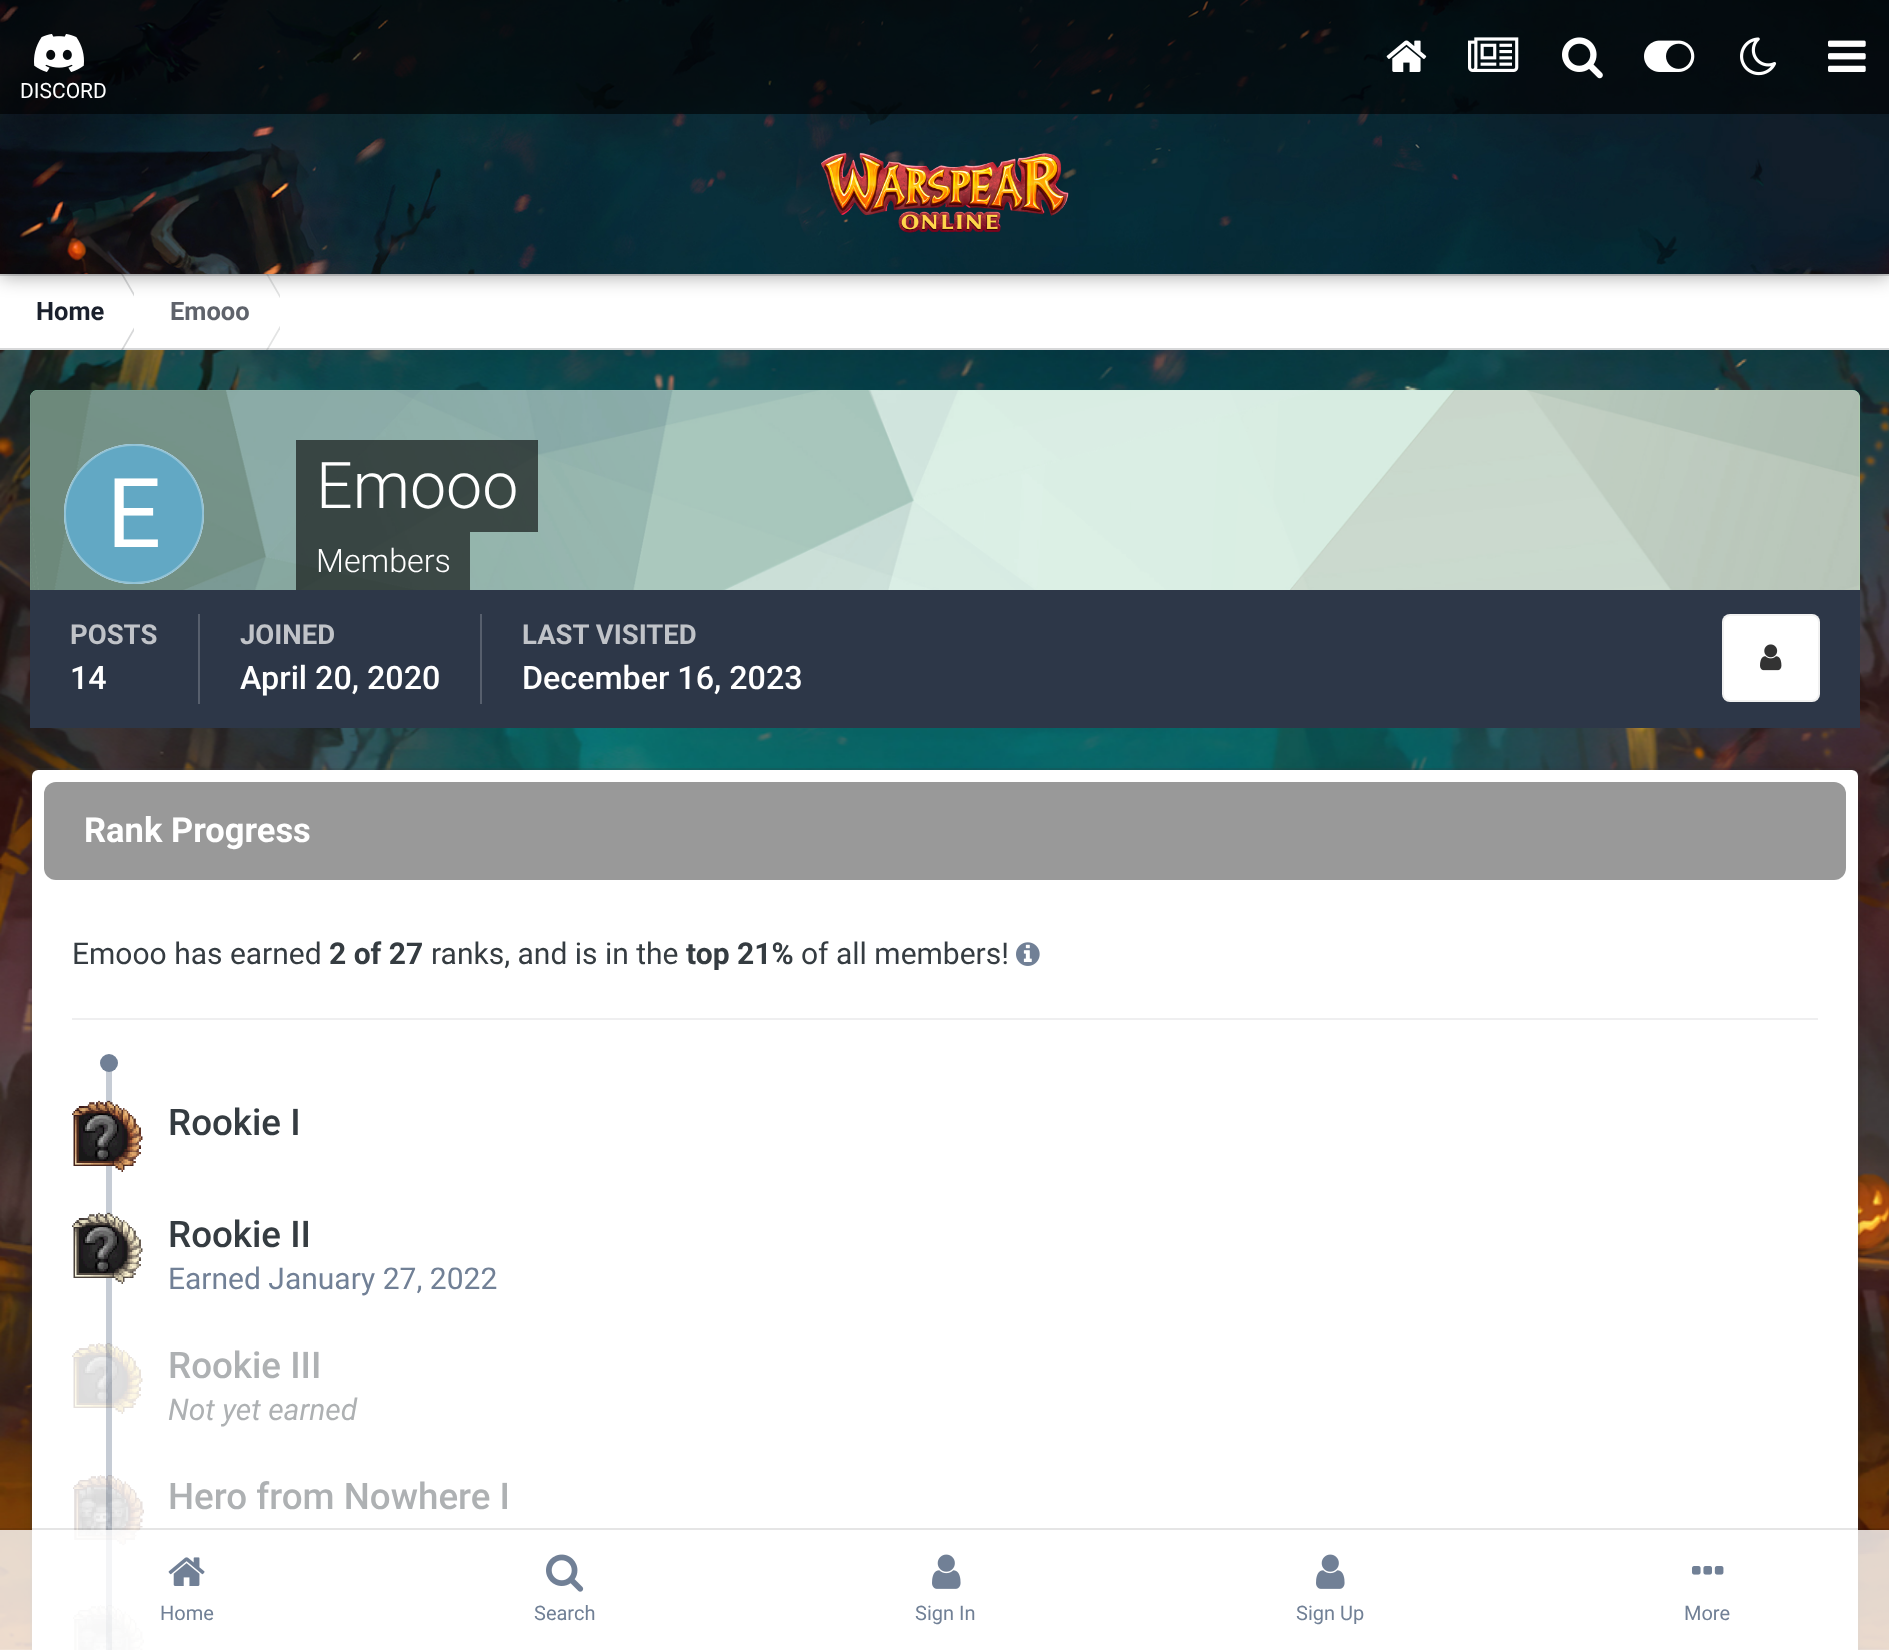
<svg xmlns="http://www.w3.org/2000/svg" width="1889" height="1650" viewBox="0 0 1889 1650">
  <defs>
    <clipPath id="clip1"><path d="M0 274h134v76H0z"/></clipPath>
    <clipPath id="clip2"><path d="M134 274h146v76H134z"/></clipPath>
  </defs>
  <rect width="100%" height="100%" fill="#fff"/>
  <image x="0" y="350" width="1889" height="1300" href="img/1.png"/>
  <g clip-path="url(#clip1)">
    <path d="M121 274H123L145 312H143Z" fill="#d7d8d9"/>
  </g>
  <g clip-path="url(#clip2)">
    <path d="M266 274H268L290 312H288Z" fill="#e3e4e4"/>
  </g>
  <path d="M0 274h1889v2H0z" fill="#353c4133"/>
  <path d="M0 2h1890v274H0z" fill="#00000059" filter="blur(10px)"/>
  <image x="0" y="0" width="1889" height="274" href="img/2.png"/>
  <path d="M0 0h1889v114H0z" fill="#00000099"/>
  <image x="1386" y="40" width="41" height="32" href="img/3.png"/>
  <image x="1468" y="37" width="51" height="35" href="img/4.png"/>
  <image x="1562" y="37" width="41" height="42" href="img/5.png"/>
  <image x="1644" y="40" width="51" height="32" href="img/6.png"/>
  <image x="1740" y="37" width="37" height="39" href="img/7.png"/>
  <image x="1828" y="40" width="38" height="32" href="img/8.png"/>
  <image x="34" y="34" width="50" height="38" href="img/9.png"/>
  <image x="821" y="152" width="248" height="81" href="img/10.png"/>
  <g clip-path="url(#clip1)">
    <path d="M121 350H123L145 312H143Z" fill="#d7d8d9"/>
  </g>
  <g clip-path="url(#clip2)">
    <path d="M266 350H268L290 312H288Z" fill="#e3e4e4"/>
  </g>
  <path d="M0 348h1889v2H0z" fill="#353c4133"/>
  <path d="M38 390H1852C1856.5 390 1860 393.5 1860 398V590H30V398C30 393.5 33.5 390 38 390Z" fill="#99ffce"/>
  <image x="30" y="390" width="1830" height="200" href="img/11.png"/>
  <circle cx="134" cy="514" r="70" fill="#fff"/>
  <image x="64" y="444" width="140" height="140" href="img/12.png"/>
  <circle cx="134" cy="514" r="69" fill="none" stroke="#ffffff4d" stroke-width="2"/>
  <path d="M296 440h242v92H296z" fill="#00000099"/>
  <path d="M296 532h174v58H296z" fill="#00000099"/>
  <path d="M30 590h1830v138H30z" fill="#2d3748"/>
  <path d="M198 614h2v90H198z" fill="#575f6d"/>
  <path d="M480 614h2v90H480z" fill="#575f6d"/>
  <rect x="1722" y="614" width="98" height="88" rx="8" fill="#fff"/>
  <rect x="1723" y="615" width="96" height="86" rx="7" fill="none" stroke="#33333312" stroke-width="2"/>
  <image x="1760" y="644" width="22" height="27" href="img/13.png"/>
  <rect x="32" y="774" width="1826" height="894" rx="6" fill="#0000001a" filter="blur(4px)"/>
  <rect x="32" y="770" width="1826" height="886" rx="6" fill="#fff"/>
  <rect x="31" y="769" width="1828" height="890" rx="7" fill="none" stroke="#353c4133" stroke-width="2"/>
  <rect x="44" y="782" width="1802" height="98" rx="12" fill="#999"/>
  <image x="1016" y="942" width="24" height="24" href="img/14.png"/>
  <path d="M72 1018h1746v2H72z" fill="#efeff0"/>
  <path d="M106 1071h6v579H106z" fill="#c6ccd5"/>
  <circle cx="109" cy="1063" r="9" fill="#718096"/>
  <image x="72" y="1100" width="71" height="72" href="img/15.png"/>
  <image x="72" y="1212" width="71" height="72" href="img/16.png"/>
  <image x="72" y="1343" width="71" height="71" href="img/17.png"/>
  <image x="73" y="1475" width="71" height="71" href="img/18.png"/>
  <image x="73" y="1605" width="71" height="45" href="img/19.png"/>
  <path d="M0 1528h1889v2H0z" fill="#0000001a"/>
  <path d="M0 1530h1889v120H0z" fill="#ffffffcc"/>
  <image x="168" y="1557" width="37" height="29" href="img/20.png"/>
  <image x="546" y="1554" width="38" height="38" href="img/21.png"/>
  <image x="932" y="1554" width="29" height="35" href="img/22.png"/>
  <image x="1316" y="1554" width="29" height="35" href="img/22.png"/>
  <image x="1692" y="1566" width="32" height="9" href="img/23.png"/>
  <text x="20" y="98" font-family="Roboto" font-size="21" fill="#fff">DISCORD</text>
  <text x="36" y="320" font-family="Roboto" font-size="25.5" font-weight="bold" fill="#1a202c">Home</text>
  <text x="170" y="320" font-family="Roboto" font-size="25.5" font-weight="bold" fill="#5f636b">Emooo</text>
  <text x="316" y="508" font-family="Roboto" font-size="64.5" font-weight="300" fill="#fff">Emooo</text>
  <text x="316" y="572" font-family="Roboto" font-size="32.25" font-weight="300" fill="#fff">Members</text>
  <text x="70" y="644" font-family="Roboto" font-size="27.5" font-weight="bold" fill="#c0c3c8">POSTS</text>
  <text x="70" y="689" font-family="Roboto" font-size="32.25" font-weight="500" fill="#fff">14</text>
  <text x="240" y="644" font-family="Roboto" font-size="27.5" font-weight="bold" fill="#c0c3c8">JOINED</text>
  <text x="240" y="689" font-family="Roboto" font-size="32.25" font-weight="500" fill="#fff">April 20, 2020</text>
  <text x="522" y="644" font-family="Roboto" font-size="27.5" font-weight="bold" fill="#c0c3c8">LAST VISITED</text>
  <text x="522" y="689" font-family="Roboto" font-size="32.25" font-weight="500" fill="#fff">December 16, 2023</text>
  <text x="84" y="842" font-family="Roboto" font-size="34.5" font-weight="bold" fill="#fff">Rank Progress</text>
  <text x="72" y="964" font-family="Roboto" font-size="30" fill="#353c41">Emooo has earned</text>
  <text x="329" y="964" font-family="Roboto" font-size="30" font-weight="bold" fill="#353c41">2 of 27</text>
  <text x="431" y="964" font-family="Roboto" font-size="30" fill="#353c41">ranks, and is in the</text>
  <text x="686" y="964" font-family="Roboto" font-size="30" font-weight="bold" fill="#353c41">top 21%</text>
  <text x="801" y="964" font-family="Roboto" font-size="30" fill="#353c41">of all members!</text>
  <g font-family="Roboto" font-size="36.75" font-weight="500" fill="#353c41">
    <text x="168" y="1135">Rookie I</text>
    <text x="168" y="1247">Rookie II</text>
  </g>
  <text x="168" y="1289" font-family="Roboto" font-size="30" fill="#718096">Earned January 27, 2022</text>
  <text x="168" y="1378" font-family="Roboto" font-size="36.75" font-weight="500" fill="#aeb1b3">Rookie III</text>
  <text x="168" y="1420" font-family="Roboto" font-size="30" font-style="italic" fill="#aeb1b3">Not yet earned</text>
  <text x="168" y="1509" font-family="Roboto" font-size="36.75" font-weight="500" fill="#aeb1b3">Hero from Nowhere I</text>
  <g font-family="Roboto" font-size="20" fill="#718096">
    <text x="160" y="1620">Home</text>
    <text x="534" y="1620">Search</text>
    <text x="915" y="1620">Sign In</text>
    <text x="1296" y="1620">Sign Up</text>
    <text x="1684" y="1620">More</text>
  </g>
</svg>
